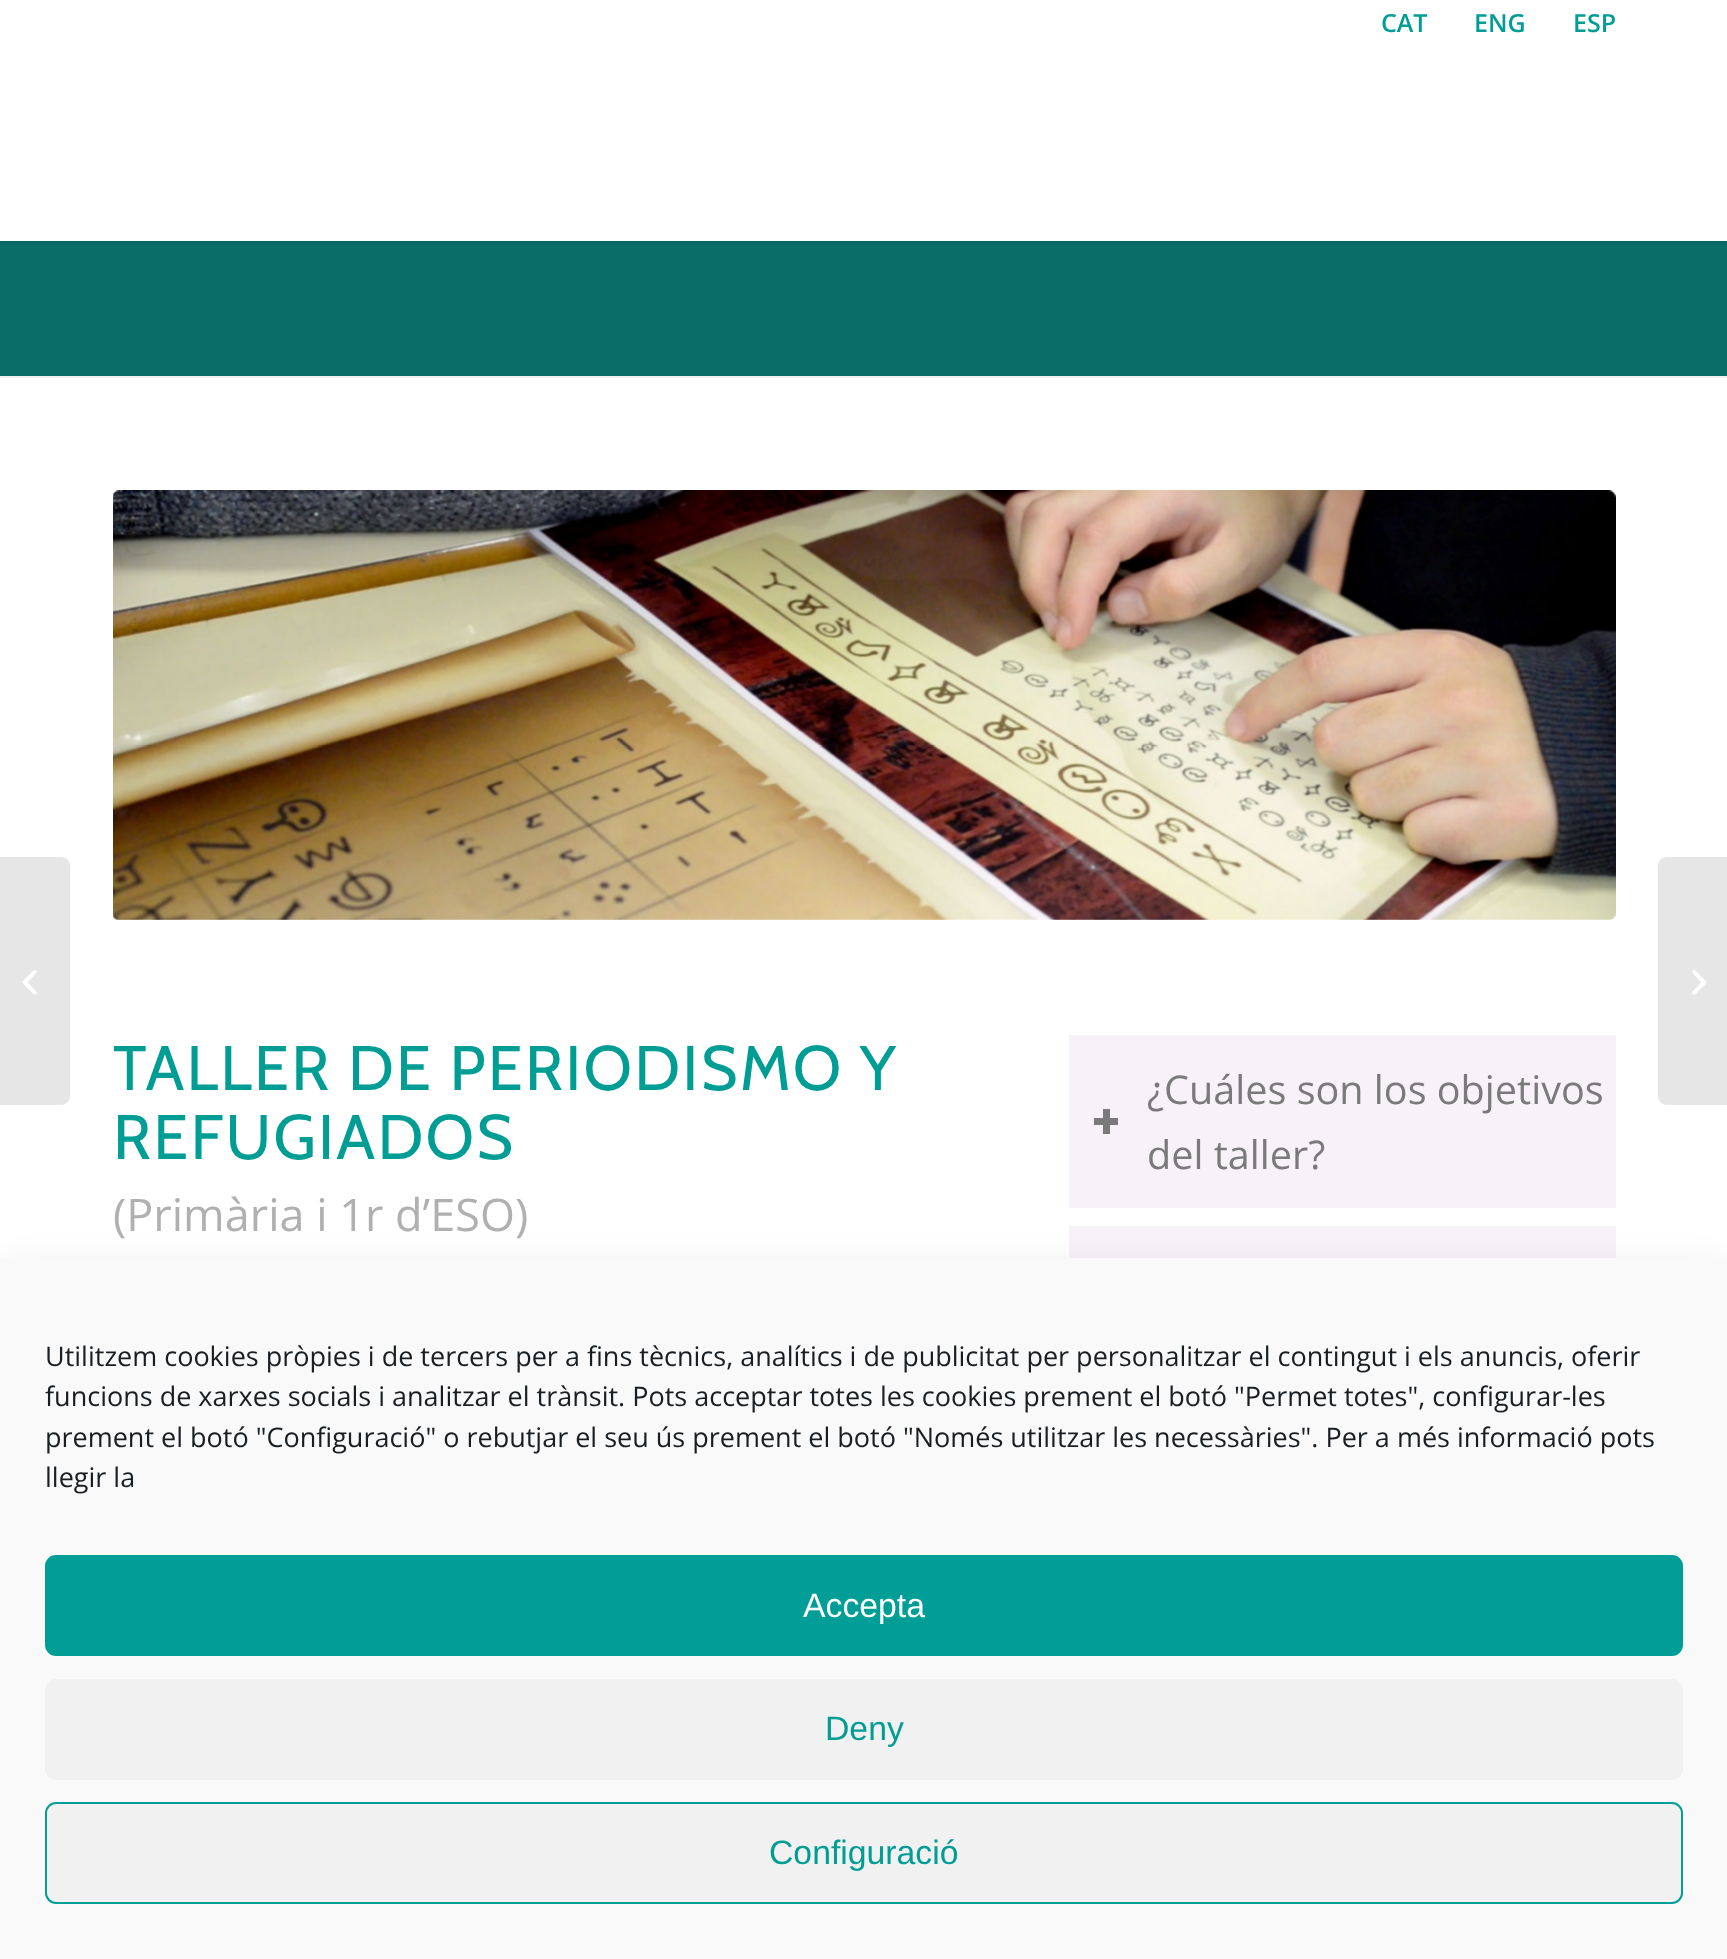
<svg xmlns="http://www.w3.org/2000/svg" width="1727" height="1959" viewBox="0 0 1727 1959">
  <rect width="100%" height="100%" fill="#fff"/>
  <path d="M0 241h1727v135H0z" fill="#0b6d68"/>
  <path d="M-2 -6h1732v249H-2z" fill="#0000001a" filter="blur(2px)"/>
  <path d="M0 0h1727v241H0z" fill="#fff"/>
  <path d="M0 857H61C66 857 70 861 70 866V1096C70 1101 66 1105 61 1105H0Z" fill="#e6e6e6"/>
  <image x="22" y="970" width="15" height="25" href="img/1.png"/>
  <path d="M1667 857H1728V1105H1667C1662 1105 1658 1101 1658 1096V866C1658 861 1662 857 1667 857Z" fill="#e6e6e6"/>
  <image x="1692" y="970" width="15" height="25" href="img/2.png"/>
  <path d="M0 376h1727v2H0z" fill="#f2f2f2"/>
  <image x="113" y="490" width="1503" height="430" href="img/3.png"/>
  <path d="M1069 1035h547v173H1069z" fill="#f6f2f7"/>
  <path d="M1103 1109h7v25H1103z" fill="#7a7a7a"/>
  <path d="M1094 1118h24v7H1094z" fill="#7a7a7a"/>
  <path d="M1069 1226h547v32H1069z" fill="#f6f2f7"/>
  <path d="M0 1280h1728v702H0z" fill="#00000030" filter="blur(22.5px)"/>
  <path d="M0 1259h1727v700H0z" fill="#f9f9f9"/>
  <rect x="46" y="1556" width="1636" height="99" rx="10" fill="#009e96" stroke="#009e96" stroke-width="2"/>
  <rect x="45" y="1679" width="1638" height="101" rx="11" fill="#f1f1f1"/>
  <rect x="46" y="1803" width="1636" height="100" rx="10" fill="#f1f1f1" stroke="#009e96" stroke-width="2"/>
  <g font-family="Open Sans" font-size="25" font-weight="600" fill="#009d95">
    <text x="1381" y="32">CAT</text>
    <text x="1474" y="32">ENG</text>
    <text x="1573" y="32">ESP</text>
  </g>
  <g font-family="Cabin" font-size="63" letter-spacing="2.25" fill="#009d95">
    <text x="113" y="1090">TALLER DE PERIODISMO Y</text>
    <text x="113" y="1159">REFUGIADOS</text>
  </g>
  <text x="113" y="1231" font-family="Open Sans" font-size="45" fill="#b0b0b0">(Primària i 1r d’ESO)</text>
  <g font-family="Open Sans" font-size="39.6" fill="#7a7a7a">
    <text x="1147" y="1104">¿Cuáles son los objetivos</text>
    <text x="1147" y="1169">del taller?</text>
  </g>
  <g font-family="Open Sans" font-size="27" fill="#191e23">
    <text x="45" y="1366">Utilitzem cookies pròpies i de tercers per a fins tècnics, analítics i de publicitat per personalitzar el contingut i els anuncis, oferir</text>
    <text x="45" y="1406">funcions de xarxes socials i analitzar el trànsit. Pots acceptar totes les cookies prement el botó "Permet totes", configurar-les</text>
    <text x="45" y="1447">prement el botó "Configuració" o rebutjar el seu ús prement el botó "Només utilitzar les necessàries". Per a més informació pots</text>
    <text x="45" y="1487">llegir la</text>
  </g>
  <text x="803" y="1617" font-family="Liberation Sans" font-size="33.75" fill="#fff">Accepta</text>
  <g font-family="Liberation Sans" font-size="33.75" fill="#009d95">
    <text x="825" y="1740">Deny</text>
    <text x="769" y="1864">Configuració</text>
  </g>
</svg>
